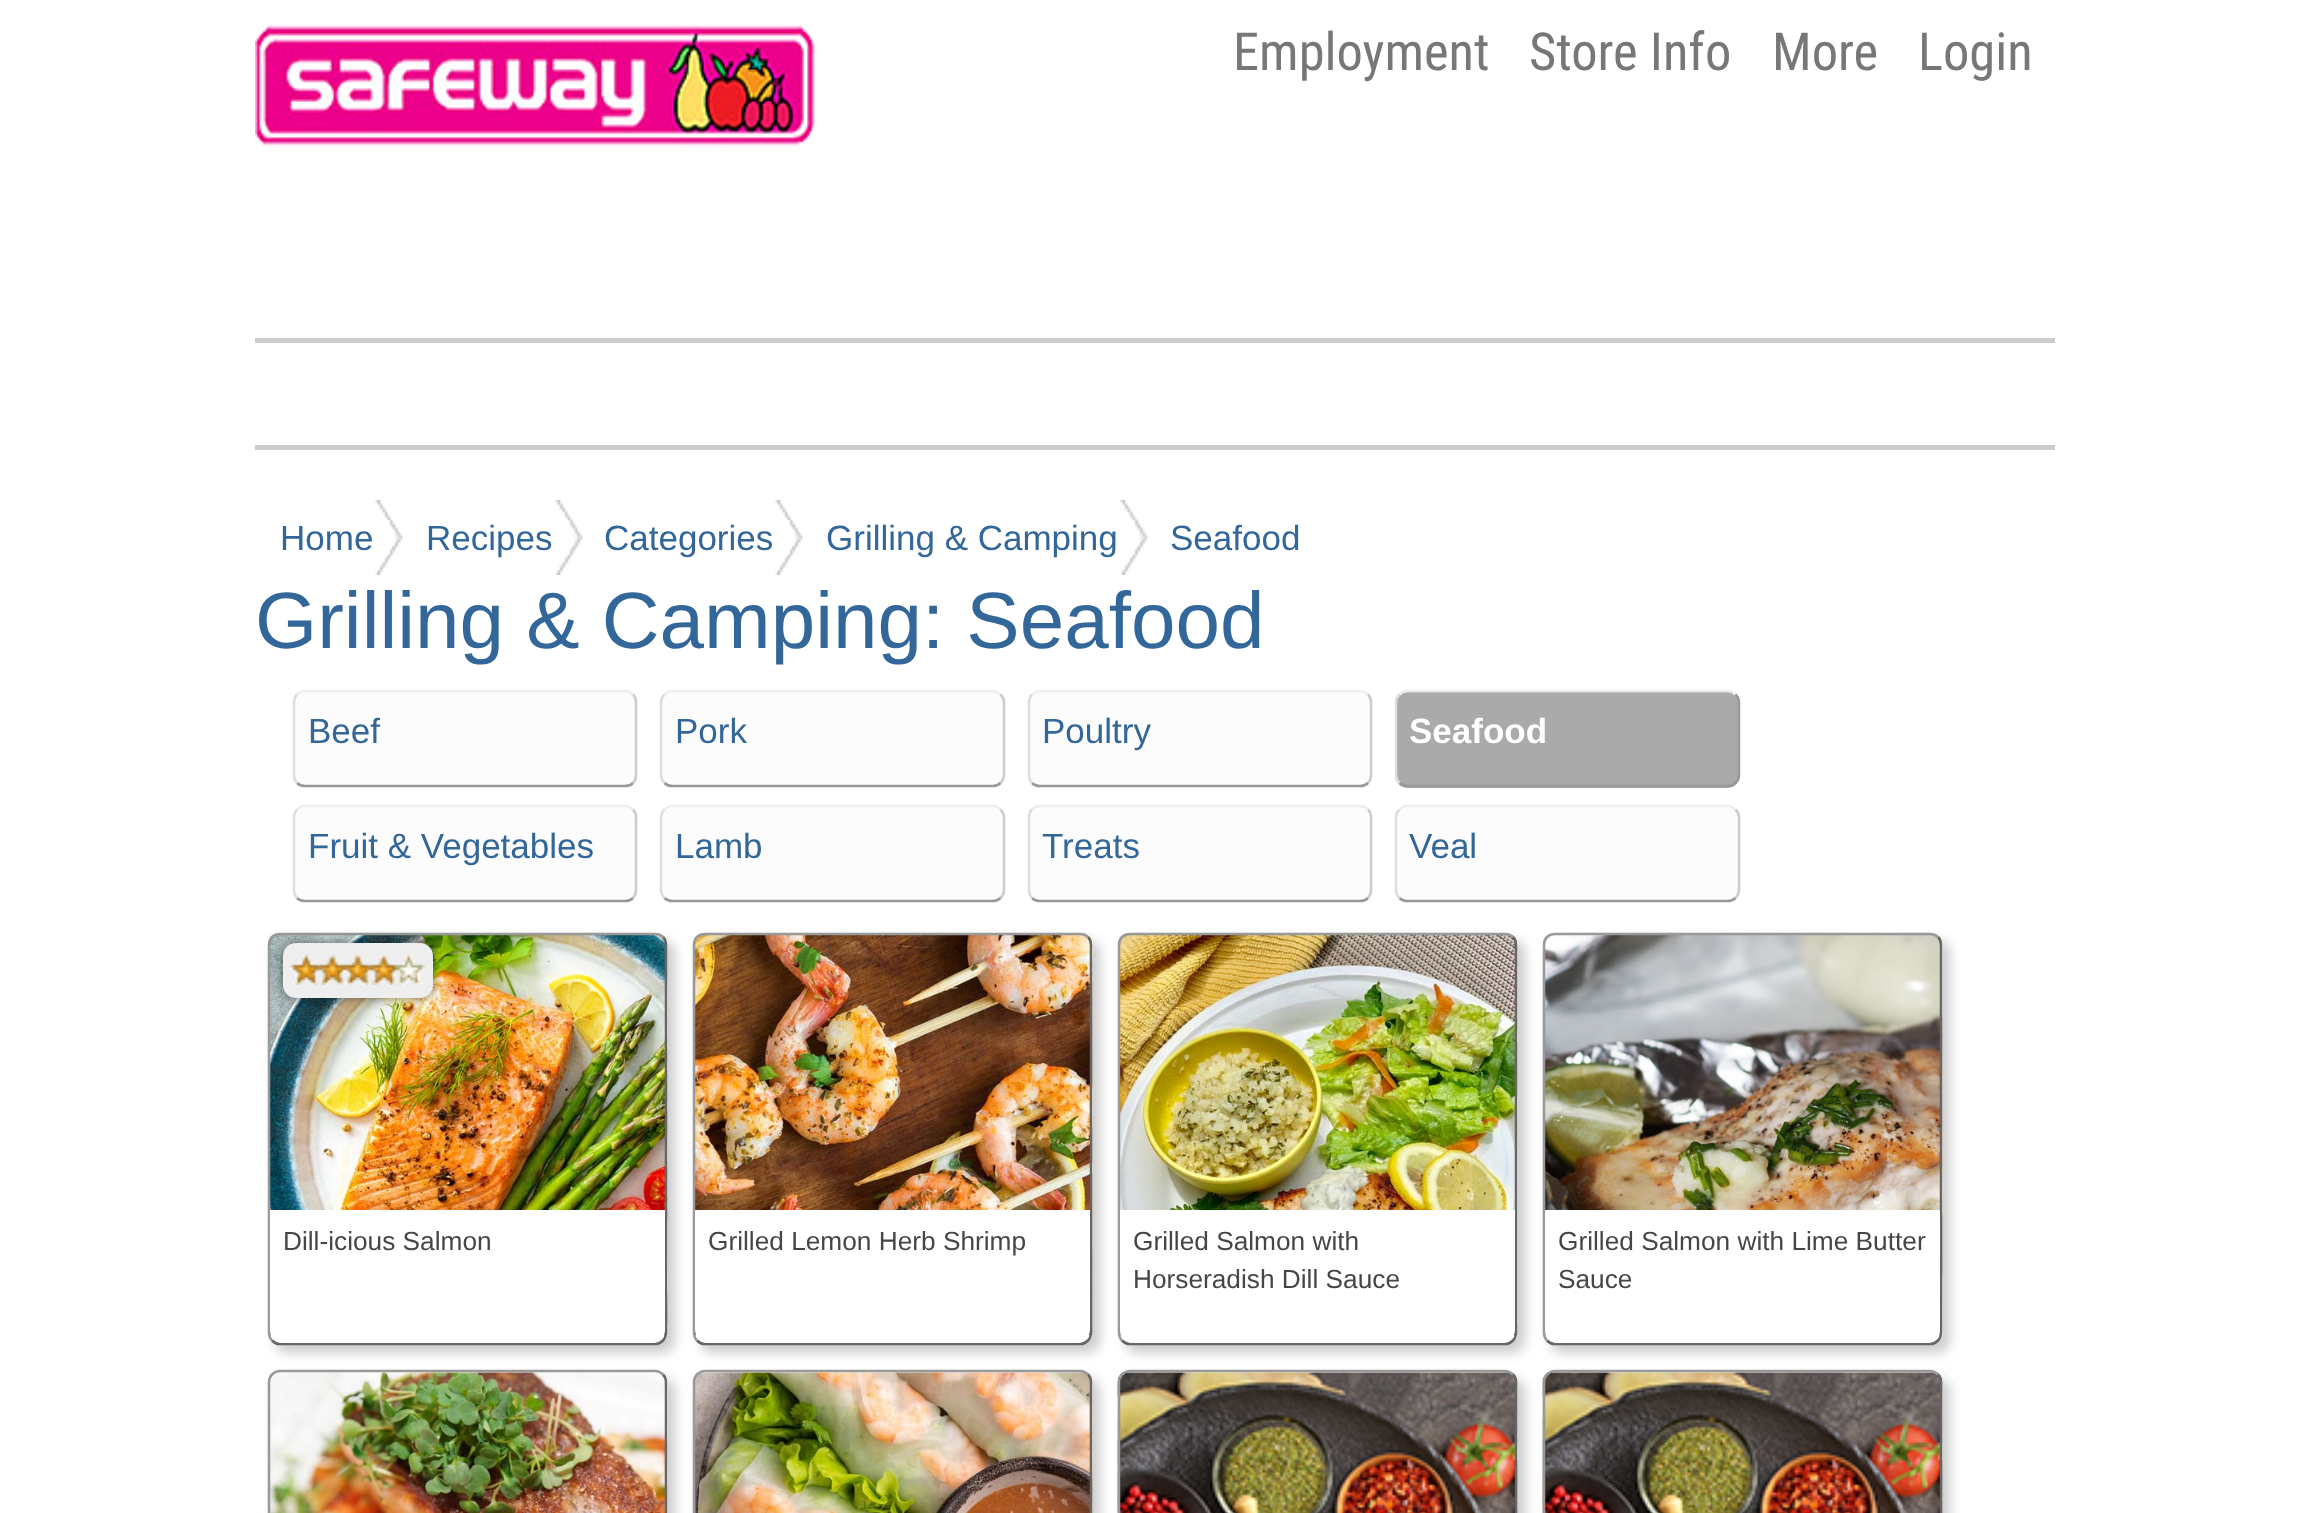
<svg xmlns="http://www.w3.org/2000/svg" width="2310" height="1513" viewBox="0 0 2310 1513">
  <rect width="100%" height="100%" fill="#fff"/>
  <image x="255" y="24" width="560" height="123" href="img/1.png"/>
  <path d="M255 338h1800v5H255z" fill="#ccc"/>
  <path d="M255 445h1800v5H255z" fill="#ccc"/>
  <image x="374" y="500" width="29" height="75" href="img/2.png"/>
  <image x="554" y="500" width="29" height="75" href="img/3.png"/>
  <image x="774" y="500" width="29" height="75" href="img/2.png"/>
  <image x="1119" y="500" width="29" height="75" href="img/4.png"/>
  <rect x="293" y="690" width="345" height="98" rx="13" fill="#fcfcfc"/>
  <path d="M297 694.5C299 692.5 302 691 305 691H625C628 691 631 692.5 633 694.5" fill="none" stroke="#eee" stroke-width="2.5"/>
  <path d="M633 694.5C635 696.5 636 699.5 636 702.5V775C636 778 635 781 633 783" fill="none" stroke="#ccc" stroke-width="2.5"/>
  <path d="M633 783C631 785 628 786 625 786H305C302 786 299 785 297 783" fill="none" stroke="#999" stroke-width="2.5"/>
  <path d="M297 783C295 781 294 778 294 775V702.5C294 699.5 295 696.5 297 694.5" fill="none" stroke="#ddd" stroke-width="2.5"/>
  <rect x="660" y="690" width="345" height="98" rx="13" fill="#fcfcfc"/>
  <path d="M664.5 694.5C666.5 692.5 669.5 691 672.5 691H992.5C995.5 691 998.5 692.5 1000.5 694.5" fill="none" stroke="#eee" stroke-width="2.5"/>
  <path d="M1000.5 694.5C1002.5 696.5 1004 699.5 1004 702.5V775C1004 778 1002.5 781 1000.5 783" fill="none" stroke="#ccc" stroke-width="2.5"/>
  <path d="M1000.5 783C998.5 785 995.5 786 992.5 786H672.5C669.5 786 666.5 785 664.5 783" fill="none" stroke="#999" stroke-width="2.5"/>
  <path d="M664.5 783C662.5 781 661 778 661 775V702.5C661 699.5 662.5 696.5 664.5 694.5" fill="none" stroke="#ddd" stroke-width="2.5"/>
  <rect x="1028" y="690" width="345" height="98" rx="13" fill="#fcfcfc"/>
  <path d="M1032 694.5C1034 692.5 1037 691 1040 691H1360C1363 691 1366 692.5 1368 694.5" fill="none" stroke="#eee" stroke-width="2.5"/>
  <path d="M1368 694.5C1370 696.5 1371 699.5 1371 702.5V775C1371 778 1370 781 1368 783" fill="none" stroke="#ccc" stroke-width="2.5"/>
  <path d="M1368 783C1366 785 1363 786 1360 786H1040C1037 786 1034 785 1032 783" fill="none" stroke="#999" stroke-width="2.5"/>
  <path d="M1032 783C1030 781 1029 778 1029 775V702.5C1029 699.5 1030 696.5 1032 694.5" fill="none" stroke="#ddd" stroke-width="2.5"/>
  <rect x="1395" y="690" width="345" height="98" rx="13" fill="#aaa"/>
  <path d="M1399.5 694.5C1401.5 692.5 1404.5 691 1407.5 691H1727.5C1730.5 691 1733.5 692.5 1735.5 694.5" fill="none" stroke="#eee" stroke-width="2.5"/>
  <path d="M1735.5 694.5C1737.5 696.5 1739 699.5 1739 702.5V775C1739 778 1737.5 781 1735.5 783C1733.5 785 1730.5 786 1727.5 786H1407.5C1404.5 786 1401.5 785 1399.5 783" fill="none" stroke="#999" stroke-width="2.5"/>
  <path d="M1399.5 783C1397.5 781 1396 778 1396 775V702.5C1396 699.5 1397.5 696.5 1399.5 694.5" fill="none" stroke="#ddd" stroke-width="2.5"/>
  <rect x="293" y="805" width="345" height="98" rx="13" fill="#fcfcfc"/>
  <path d="M297 809.5C299 807.5 302 806 305 806H625C628 806 631 807.5 633 809.5" fill="none" stroke="#eee" stroke-width="2.5"/>
  <path d="M633 809.5C635 811.5 636 814.5 636 817.5V890C636 893 635 896 633 898" fill="none" stroke="#ccc" stroke-width="2.5"/>
  <path d="M633 898C631 900 628 901 625 901H305C302 901 299 900 297 898" fill="none" stroke="#999" stroke-width="2.5"/>
  <path d="M297 898C295 896 294 893 294 890V817.5C294 814.5 295 811.5 297 809.5" fill="none" stroke="#ddd" stroke-width="2.5"/>
  <rect x="660" y="805" width="345" height="98" rx="13" fill="#fcfcfc"/>
  <path d="M664.5 809.5C666.5 807.5 669.5 806 672.5 806H992.5C995.5 806 998.5 807.5 1000.5 809.5" fill="none" stroke="#eee" stroke-width="2.5"/>
  <path d="M1000.5 809.5C1002.5 811.5 1004 814.5 1004 817.5V890C1004 893 1002.5 896 1000.5 898" fill="none" stroke="#ccc" stroke-width="2.5"/>
  <path d="M1000.5 898C998.5 900 995.5 901 992.5 901H672.5C669.5 901 666.5 900 664.5 898" fill="none" stroke="#999" stroke-width="2.5"/>
  <path d="M664.5 898C662.5 896 661 893 661 890V817.5C661 814.5 662.5 811.5 664.5 809.5" fill="none" stroke="#ddd" stroke-width="2.5"/>
  <rect x="1028" y="805" width="345" height="98" rx="13" fill="#fcfcfc"/>
  <path d="M1032 809.5C1034 807.5 1037 806 1040 806H1360C1363 806 1366 807.5 1368 809.5" fill="none" stroke="#eee" stroke-width="2.5"/>
  <path d="M1368 809.5C1370 811.5 1371 814.5 1371 817.5V890C1371 893 1370 896 1368 898" fill="none" stroke="#ccc" stroke-width="2.5"/>
  <path d="M1368 898C1366 900 1363 901 1360 901H1040C1037 901 1034 900 1032 898" fill="none" stroke="#999" stroke-width="2.5"/>
  <path d="M1032 898C1030 896 1029 893 1029 890V817.5C1029 814.5 1030 811.5 1032 809.5" fill="none" stroke="#ddd" stroke-width="2.5"/>
  <rect x="1395" y="805" width="345" height="98" rx="13" fill="#fcfcfc"/>
  <path d="M1399.5 809.5C1401.5 807.5 1404.5 806 1407.5 806H1727.5C1730.5 806 1733.5 807.5 1735.5 809.5" fill="none" stroke="#eee" stroke-width="2.5"/>
  <path d="M1735.5 809.5C1737.5 811.5 1739 814.5 1739 817.5V890C1739 893 1737.5 896 1735.5 898" fill="none" stroke="#ccc" stroke-width="2.5"/>
  <path d="M1735.5 898C1733.5 900 1730.5 901 1727.5 901H1407.5C1404.5 901 1401.5 900 1399.5 898" fill="none" stroke="#999" stroke-width="2.5"/>
  <path d="M1399.5 898C1397.5 896 1396 893 1396 890V817.5C1396 814.5 1397.5 811.5 1399.5 809.5" fill="none" stroke="#ddd" stroke-width="2.5"/>
  <rect x="275" y="940" width="400" height="413" rx="13" fill="#99999980" filter="blur(6px)"/>
  <rect x="268" y="933" width="400" height="412" rx="13" fill="#fff"/>
  <image x="270" y="935" width="398" height="400" href="img/5.png"/>
  <path d="M663 937C665 939 666 942 666 945V1332.5C666 1335.5 665 1338.5 663 1340.5C661 1342.5 658 1344 655 1344H280C277 1344 274 1342.5 272 1340.5" fill="none" stroke="#666" stroke-width="2.5"/>
  <path d="M272 1340.5C270 1338.5 269 1335.5 269 1332.5V945C269 942 270 939 272 937C274 935 277 934 280 934H655C658 934 661 935 663 937" fill="none" stroke="#999" stroke-width="2.5"/>
  <rect x="283" y="943" width="150" height="55" rx="13" fill="#00000080" filter="blur(6px)"/>
  <rect x="283" y="943" width="150" height="55" rx="13" fill="#eee"/>
  <image x="290" y="955" width="135" height="30" href="img/6.png"/>
  <path d="M270 1210H665V1330C665 1337 659 1343 652 1343H283C276 1343 270 1337 270 1330Z" fill="#fff"/>
  <rect x="700" y="940" width="400" height="413" rx="13" fill="#99999980" filter="blur(6px)"/>
  <rect x="693" y="933" width="400" height="412" rx="13" fill="#fff"/>
  <image x="695" y="935" width="398" height="400" href="img/7.png"/>
  <path d="M1088 937C1090 939 1091 942 1091 945V1332.5C1091 1335.5 1090 1338.5 1088 1340.5C1086 1342.5 1083 1344 1080 1344H705C702 1344 699 1342.5 697 1340.5" fill="none" stroke="#666" stroke-width="2.5"/>
  <path d="M697 1340.5C695 1338.5 694 1335.5 694 1332.5V945C694 942 695 939 697 937C699 935 702 934 705 934H1080C1083 934 1086 935 1088 937" fill="none" stroke="#999" stroke-width="2.5"/>
  <path d="M695 1210H1090V1330C1090 1337 1084 1343 1077 1343H708C701 1343 695 1337 695 1330Z" fill="#fff"/>
  <rect x="1125" y="940" width="400" height="413" rx="13" fill="#99999980" filter="blur(6px)"/>
  <rect x="1118" y="933" width="400" height="412" rx="13" fill="#fff"/>
  <image x="1120" y="935" width="398" height="400" href="img/8.png"/>
  <path d="M1513 937C1515 939 1516 942 1516 945V1332.5C1516 1335.5 1515 1338.5 1513 1340.5C1511 1342.5 1508 1344 1505 1344H1130C1127 1344 1124 1342.5 1122 1340.5" fill="none" stroke="#666" stroke-width="2.5"/>
  <path d="M1122 1340.5C1120 1338.5 1119 1335.5 1119 1332.5V945C1119 942 1120 939 1122 937C1124 935 1127 934 1130 934H1505C1508 934 1511 935 1513 937" fill="none" stroke="#999" stroke-width="2.5"/>
  <path d="M1120 1210H1515V1330C1515 1337 1509 1343 1502 1343H1133C1126 1343 1120 1337 1120 1330Z" fill="#fff"/>
  <rect x="1550" y="940" width="400" height="413" rx="13" fill="#99999980" filter="blur(6px)"/>
  <rect x="1543" y="933" width="400" height="412" rx="13" fill="#fff"/>
  <image x="1545" y="935" width="398" height="400" href="img/9.png"/>
  <path d="M1938 937C1940 939 1941 942 1941 945V1332.5C1941 1335.5 1940 1338.5 1938 1340.5C1936 1342.5 1933 1344 1930 1344H1555C1552 1344 1549 1342.5 1547 1340.5" fill="none" stroke="#666" stroke-width="2.5"/>
  <path d="M1547 1340.5C1545 1338.5 1544 1335.5 1544 1332.5V945C1544 942 1545 939 1547 937C1549 935 1552 934 1555 934H1930C1933 934 1936 935 1938 937" fill="none" stroke="#999" stroke-width="2.5"/>
  <path d="M1545 1210H1940V1330C1940 1337 1934 1343 1927 1343H1558C1551 1343 1545 1337 1545 1330Z" fill="#fff"/>
  <rect x="275" y="1378" width="400" height="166" rx="13" fill="#99999980" filter="blur(6px)"/>
  <rect x="268" y="1370" width="400" height="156" rx="13" fill="#fff"/>
  <image x="270" y="1372" width="398" height="141" href="img/10.png"/>
  <path d="M663 1374.5C665 1376.5 666 1379.5 666 1382.5V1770C666 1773 665 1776 663 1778C661 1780 658 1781 655 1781H280C277 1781 274 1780 272 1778" fill="none" stroke="#666" stroke-width="2.5"/>
  <path d="M272 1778C270 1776 269 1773 269 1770V1382.5C269 1379.5 270 1376.5 272 1374.5C274 1372.5 277 1371 280 1371H655C658 1371 661 1372.5 663 1374.5" fill="none" stroke="#999" stroke-width="2.5"/>
  <rect x="700" y="1378" width="400" height="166" rx="13" fill="#99999980" filter="blur(6px)"/>
  <rect x="693" y="1370" width="400" height="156" rx="13" fill="#fff"/>
  <image x="695" y="1372" width="398" height="141" href="img/11.png"/>
  <path d="M1088 1374.5C1090 1376.5 1091 1379.5 1091 1382.5V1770C1091 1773 1090 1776 1088 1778C1086 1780 1083 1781 1080 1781H705C702 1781 699 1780 697 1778" fill="none" stroke="#666" stroke-width="2.5"/>
  <path d="M697 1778C695 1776 694 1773 694 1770V1382.5C694 1379.5 695 1376.5 697 1374.5C699 1372.5 702 1371 705 1371H1080C1083 1371 1086 1372.5 1088 1374.5" fill="none" stroke="#999" stroke-width="2.5"/>
  <rect x="1125" y="1378" width="400" height="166" rx="13" fill="#99999980" filter="blur(6px)"/>
  <rect x="1118" y="1370" width="400" height="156" rx="13" fill="#fff"/>
  <image x="1117" y="1372" width="401" height="141" href="img/12.png"/>
  <path d="M1513 1374.5C1515 1376.5 1516 1379.5 1516 1382.5V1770C1516 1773 1515 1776 1513 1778C1511 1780 1508 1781 1505 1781H1130C1127 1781 1124 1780 1122 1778" fill="none" stroke="#666" stroke-width="2.5"/>
  <path d="M1122 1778C1120 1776 1119 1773 1119 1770V1382.5C1119 1379.5 1120 1376.5 1122 1374.5C1124 1372.5 1127 1371 1130 1371H1505C1508 1371 1511 1372.5 1513 1374.5" fill="none" stroke="#999" stroke-width="2.5"/>
  <rect x="1550" y="1378" width="400" height="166" rx="13" fill="#99999980" filter="blur(6px)"/>
  <rect x="1543" y="1370" width="400" height="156" rx="13" fill="#fff"/>
  <image x="1542" y="1372" width="401" height="141" href="img/13.png"/>
  <path d="M1938 1374.5C1940 1376.5 1941 1379.5 1941 1382.5V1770C1941 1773 1940 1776 1938 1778C1936 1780 1933 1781 1930 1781H1555C1552 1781 1549 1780 1547 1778" fill="none" stroke="#666" stroke-width="2.5"/>
  <path d="M1547 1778C1545 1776 1544 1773 1544 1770V1382.5C1544 1379.5 1545 1376.5 1547 1374.5C1549 1372.5 1552 1371 1555 1371H1930C1933 1371 1936 1372.5 1938 1374.5" fill="none" stroke="#999" stroke-width="2.5"/>
  <g font-family="Roboto Condensed" font-size="52.5" fill="#777">
    <text x="1233" y="70">Employment</text>
    <text x="1529" y="70">Store Info</text>
    <text x="1772" y="70">More</text>
    <text x="1918" y="70">Login</text>
  </g>
  <g font-family="Liberation Sans" font-size="35" fill="#369">
    <text x="280" y="550">Home</text>
    <text x="426" y="550">Recipes</text>
    <text x="604" y="550">Categories</text>
    <text x="826" y="550">Grilling &amp; Camping</text>
    <text x="1170" y="550">Seafood</text>
  </g>
  <text x="255" y="648" font-family="Liberation Sans" font-size="80" fill="#369">Grilling &amp; Camping: Seafood</text>
  <g font-family="Liberation Sans" font-size="35" fill="#369">
    <text x="308" y="743">Beef</text>
    <text x="675" y="743">Pork</text>
    <text x="1042" y="743">Poultry</text>
  </g>
  <text x="1409" y="743" font-family="Liberation Sans" font-size="35" font-weight="bold" fill="#fff">Seafood</text>
  <g font-family="Liberation Sans" font-size="35" fill="#369">
    <text x="308" y="858">Fruit &amp; Vegetables</text>
    <text x="675" y="858">Lamb</text>
    <text x="1042" y="858">Treats</text>
    <text x="1409" y="858">Veal</text>
  </g>
  <g font-family="Liberation Sans" font-size="26.25" fill="#464646">
    <text x="283" y="1250">Dill-icious Salmon</text>
    <text x="708" y="1250">Grilled Lemon Herb Shrimp</text>
    <text x="1133" y="1250">Grilled Salmon with</text>
    <text x="1133" y="1288">Horseradish Dill Sauce</text>
    <text x="1558" y="1250">Grilled Salmon with Lime Butter</text>
    <text x="1558" y="1288">Sauce</text>
  </g>
</svg>
